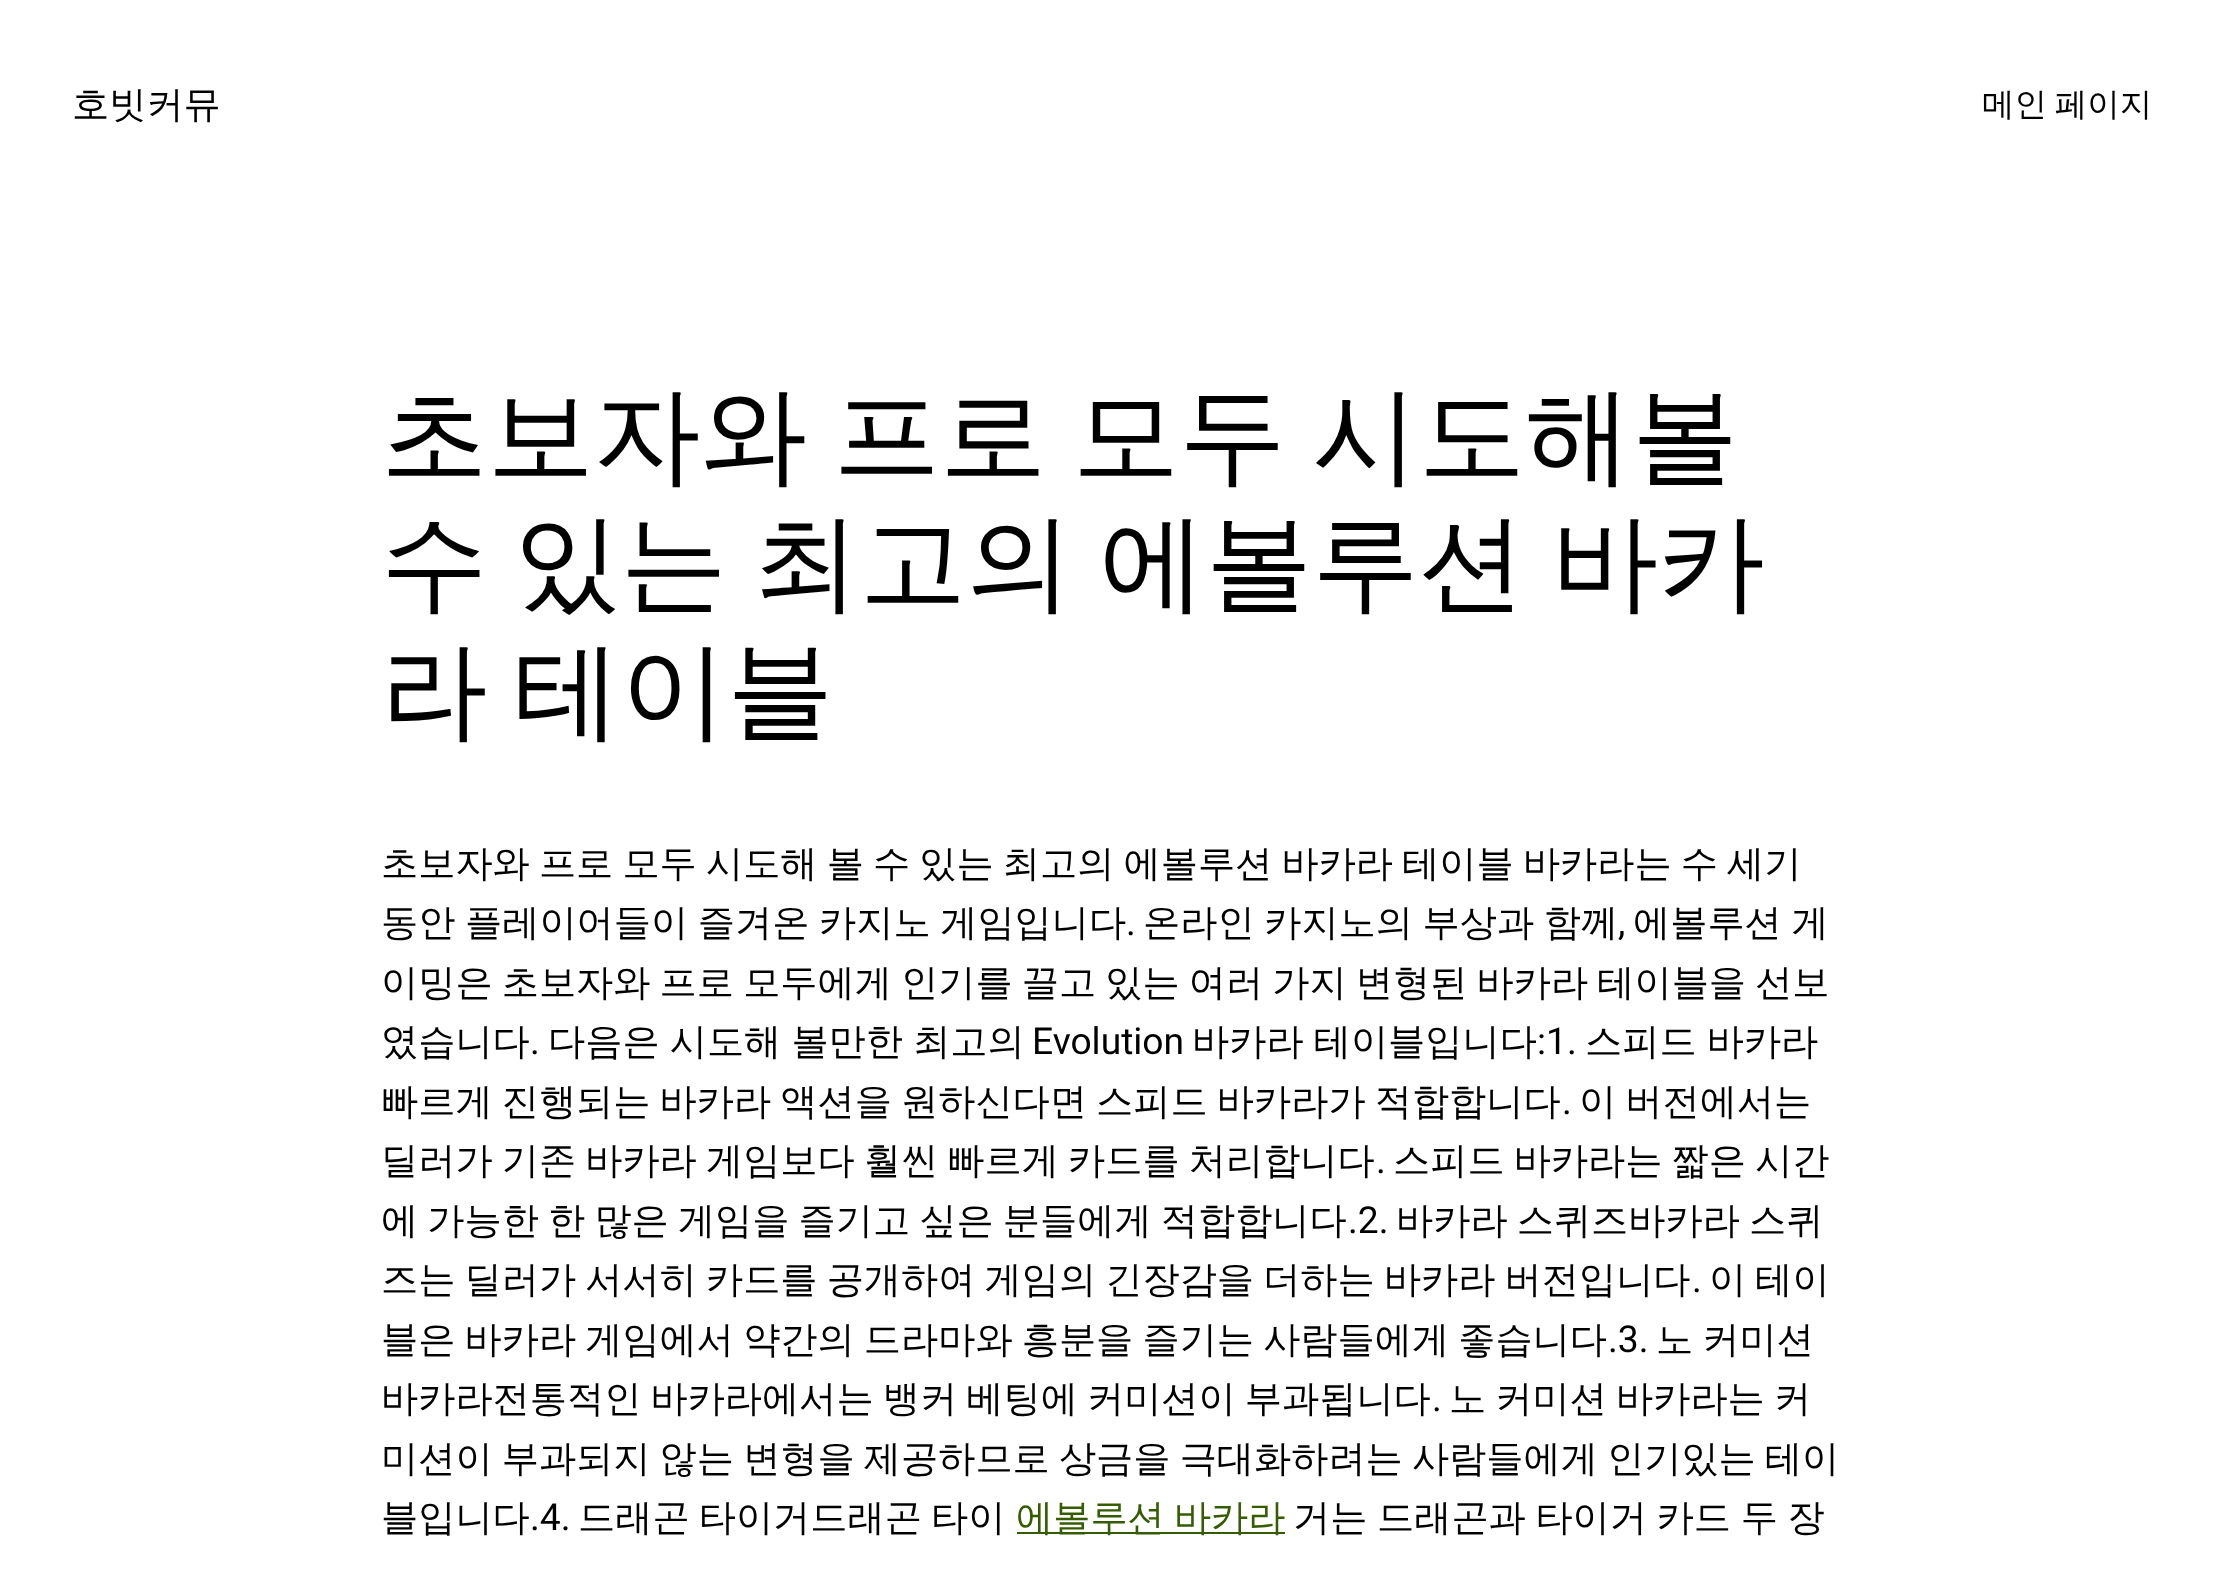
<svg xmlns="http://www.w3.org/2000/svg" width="2225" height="1577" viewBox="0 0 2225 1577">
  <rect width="100%" height="100%" fill="#fff"/>
  <path d="M1017 1532h268v2H1017z" fill="#345c00"/>
  <text x="72" y="117" font-family="WenQuanYi Zen Hei" font-size="37.2" font-weight="500" fill="#000">호빗커뮤</text>
  <text x="1982" y="115" word-spacing="-2" font-family="WenQuanYi Zen Hei" font-size="32.5" font-weight="500" fill="#000">메인 페이지</text>
  <g font-family="WenQuanYi Zen Hei" font-size="106.5" font-weight="500" fill="#000">
    <text x="381" y="472" word-spacing="-5.5">초보자와 프로 모두 시도해볼</text>
    <text x="381" y="599" word-spacing="-5.5">수 있는 최고의 에볼루션 바카</text>
    <text x="381" y="727" word-spacing="-5.5">라 테이블</text>
  </g>
  <g font-family="WenQuanYi Zen Hei" font-size="37.2" font-weight="500" fill="#000">
    <text x="381" y="876" word-spacing="-2">초보자와 프로 모두 시도해 볼 수 있는 최고의 에볼루션 바카라 테이블 바카라는 수 세기</text>
    <text x="381" y="935" word-spacing="-1.5">동안 플레이어들이 즐겨온 카지노 게임입니다</text>
  </g>
  <text x="1126" y="935" font-family="Roboto" font-size="37.2" fill="#000">.</text>
  <text x="1143" y="935" word-spacing="-1.5" font-family="WenQuanYi Zen Hei" font-size="37.2" font-weight="500" fill="#000">온라인 카지노의 부상과 함께</text>
  <text x="1618" y="935" font-family="Roboto" font-size="37.2" fill="#000">,</text>
  <g font-family="WenQuanYi Zen Hei" font-size="37.2" font-weight="500" fill="#000">
    <text x="1633" y="935" word-spacing="-1.5">에볼루션 게</text>
    <text x="381" y="995" word-spacing="-2">이밍은 초보자와 프로 모두에게 인기를 끌고 있는 여러 가지 변형된 바카라 테이블을 선보</text>
    <text x="381" y="1054">였습니다</text>
  </g>
  <text x="530" y="1054" font-family="Roboto" font-size="37.2" fill="#000">.</text>
  <text x="548" y="1054" word-spacing="-1" font-family="WenQuanYi Zen Hei" font-size="37.2" font-weight="500" fill="#000">다음은 시도해 볼만한 최고의</text>
  <text x="1032" y="1054" font-family="Roboto" font-size="37.2" fill="#000">Evolution</text>
  <text x="1192" y="1054" word-spacing="-1" font-family="WenQuanYi Zen Hei" font-size="37.2" font-weight="500" fill="#000">바카라 테이블입니다</text>
  <text x="1537" y="1054" font-family="Roboto" font-size="37.2" fill="#000">:1.</text>
  <g font-family="WenQuanYi Zen Hei" font-size="37.2" font-weight="500" fill="#000">
    <text x="1585" y="1054" word-spacing="-1">스피드 바카라</text>
    <text x="381" y="1114" word-spacing="-2">빠르게 진행되는 바카라 액션을 원하신다면 스피드 바카라가 적합합니다</text>
  </g>
  <text x="1562" y="1114" font-family="Roboto" font-size="37.2" fill="#000">.</text>
  <g font-family="WenQuanYi Zen Hei" font-size="37.2" font-weight="500" fill="#000">
    <text x="1579" y="1114" word-spacing="-2">이 버전에서는</text>
    <text x="381" y="1173" word-spacing="-2">딜러가 기존 바카라 게임보다 훨씬 빠르게 카드를 처리합니다</text>
  </g>
  <text x="1376" y="1173" font-family="Roboto" font-size="37.2" fill="#000">.</text>
  <g font-family="WenQuanYi Zen Hei" font-size="37.2" font-weight="500" fill="#000">
    <text x="1393" y="1173" word-spacing="-2">스피드 바카라는 짧은 시간</text>
    <text x="381" y="1233" word-spacing="-2">에 가능한 한 많은 게임을 즐기고 싶은 분들에게 적합합니다</text>
  </g>
  <text x="1348" y="1233" font-family="Roboto" font-size="37.2" fill="#000">.2.</text>
  <g font-family="WenQuanYi Zen Hei" font-size="37.2" font-weight="500" fill="#000">
    <text x="1396" y="1233" word-spacing="-2">바카라 스퀴즈바카라 스퀴</text>
    <text x="381" y="1292" word-spacing="-2">즈는 딜러가 서서히 카드를 공개하여 게임의 긴장감을 더하는 바카라 버전입니다</text>
  </g>
  <text x="1692" y="1292" font-family="Roboto" font-size="37.2" fill="#000">.</text>
  <g font-family="WenQuanYi Zen Hei" font-size="37.2" font-weight="500" fill="#000">
    <text x="1709" y="1292" word-spacing="-2">이 테이</text>
    <text x="381" y="1352" word-spacing="-2">블은 바카라 게임에서 약간의 드라마와 흥분을 즐기는 사람들에게 좋습니다</text>
  </g>
  <text x="1608" y="1352" font-family="Roboto" font-size="37.2" fill="#000">.3.</text>
  <g font-family="WenQuanYi Zen Hei" font-size="37.2" font-weight="500" fill="#000">
    <text x="1656" y="1352" word-spacing="-2">노 커미션</text>
    <text x="381" y="1411" word-spacing="-2">바카라전통적인 바카라에서는 뱅커 베팅에 커미션이 부과됩니다</text>
  </g>
  <text x="1432" y="1411" font-family="Roboto" font-size="37.2" fill="#000">.</text>
  <g font-family="WenQuanYi Zen Hei" font-size="37.2" font-weight="500" fill="#000">
    <text x="1449" y="1411" word-spacing="-2">노 커미션 바카라는 커</text>
    <text x="381" y="1471" word-spacing="-2">미션이 부과되지 않는 변형을 제공하므로 상금을 극대화하려는 사람들에게 인기있는 테이</text>
    <text x="381" y="1530">블입니다</text>
  </g>
  <text x="530" y="1530" font-family="Roboto" font-size="37.2" fill="#000">.4.</text>
  <text x="578" y="1530" word-spacing="-2" font-family="WenQuanYi Zen Hei" font-size="37.2" font-weight="500" fill="#000">드래곤 타이거드래곤 타이</text>
  <text x="1016" y="1530" word-spacing="-2" font-family="WenQuanYi Zen Hei" font-size="37.2" font-weight="500" fill="#345c00">에볼루션 바카라</text>
  <text x="1293" y="1530" word-spacing="-1.5" font-family="WenQuanYi Zen Hei" font-size="37.2" font-weight="500" fill="#000">거는 드래곤과 타이거 카드 두 장</text>
</svg>
